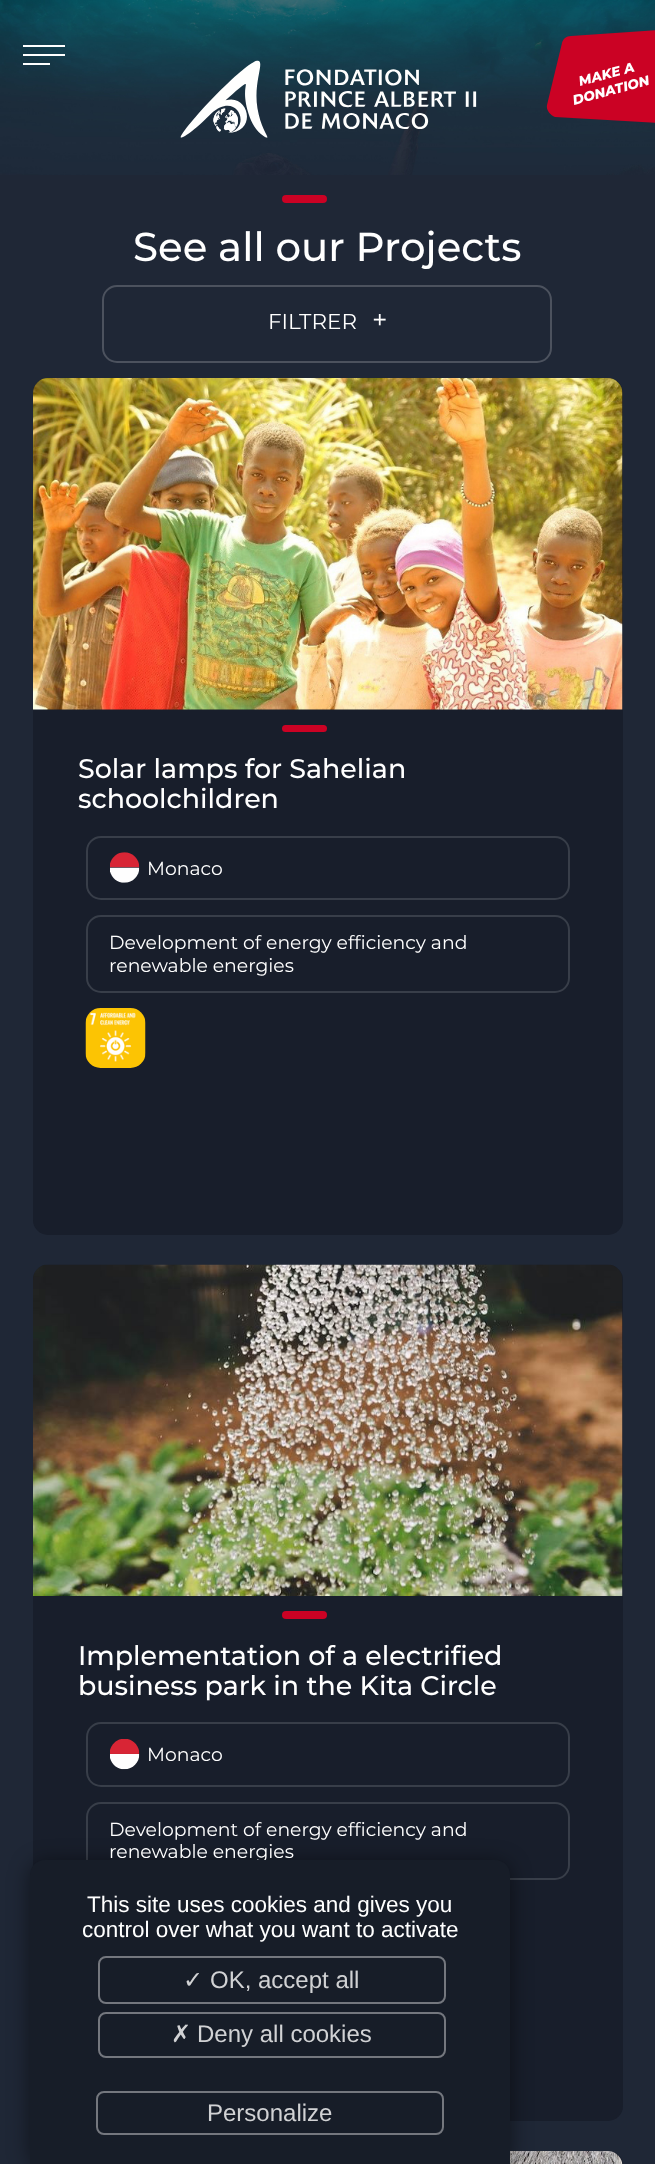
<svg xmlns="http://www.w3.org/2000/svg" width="655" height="2164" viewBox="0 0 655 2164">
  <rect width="100%" height="100%" fill="#1f2736"/>
  <image x="0" y="0" width="655" height="175" href="img/1.png"/>
  <path d="M23 45h42v2H23z" fill="#fff"/>
  <path d="M23 54h42v2H23z" fill="#fff"/>
  <path d="M23 63h27v2H23z" fill="#fff"/>
  <image x="180" y="60" width="297" height="78" href="img/2.png"/>
  <path d="M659 123C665 123 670 120 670 115V40C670 35 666 31 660 30L571 36C566 36 563 39 562 43L547 105C546 110 550 115 555 117Z" fill="#cb0224" fill-rule="evenodd"/>
  <rect x="282" y="195" width="45" height="8" rx="4" fill="#cb0224"/>
  <rect x="103" y="286" width="448" height="76" rx="14" fill="none" stroke="#4c525e" stroke-width="2"/>
  <rect x="33" y="378" width="590" height="857" rx="15" fill="#181e2b"/>
  <image x="33" y="378" width="590" height="332" href="img/3.png"/>
  <rect x="282" y="725" width="45" height="7" rx="3.5" fill="#cb0224"/>
  <rect x="87" y="837" width="482" height="62" rx="14" fill="none" stroke="#383e49" stroke-width="2"/>
  <image x="110" y="852" width="30" height="31" href="img/4.png"/>
  <rect x="87" y="916" width="482" height="76" rx="14" fill="none" stroke="#383e49" stroke-width="2"/>
  <image x="85" y="1008" width="61" height="60" href="img/5.png"/>
  <rect x="33" y="1265" width="590" height="856" rx="15" fill="#181e2b"/>
  <image x="33" y="1264" width="590" height="332" href="img/6.png"/>
  <rect x="282" y="1611" width="45" height="8" rx="4" fill="#cb0224"/>
  <rect x="87" y="1723" width="482" height="63" rx="14" fill="none" stroke="#383e49" stroke-width="2"/>
  <image x="110" y="1739" width="30" height="31" href="img/7.png"/>
  <rect x="87" y="1803" width="482" height="76" rx="14" fill="none" stroke="#383e49" stroke-width="2"/>
  <rect x="33" y="2151" width="590" height="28" rx="15" fill="#181e2b"/>
  <image x="510" y="2151" width="113" height="13" href="img/8.png"/>
  <rect x="30" y="1863" width="480" height="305" rx="15" fill="#00000080" filter="blur(10.5px)"/>
  <g font-family="Montserrat" font-size="13.5" font-weight="800" font-style="italic" fill="#fff">
    <text x="580" y="86" transform="rotate(-15 580 86)">MAKE A</text>
    <text x="574" y="105" transform="rotate(-15 574 105)">DONATION</text>
  </g>
  <text x="133" y="261" font-family="Montserrat" font-size="40.25" font-weight="500" fill="#fff">See all our Projects</text>
  <text x="268" y="329" font-family="Montserrat" font-size="21.5" fill="#fff">FILTRER</text>
  <text x="372" y="329" font-family="Montserrat" font-size="26.9" fill="#fff">+</text>
  <g font-family="Montserrat" font-size="26.9" font-weight="500" fill="#fff">
    <text x="78" y="778">Solar lamps for Sahelian</text>
    <text x="78" y="808">schoolchildren</text>
  </g>
  <g font-family="Montserrat" font-size="18.8" fill="#fff">
    <text x="147" y="875">Monaco</text>
    <text x="109" y="949">Development of energy efficiency and</text>
    <text x="109" y="972">renewable energies</text>
  </g>
  <g font-family="Montserrat" font-size="26.9" font-weight="500" fill="#fff">
    <text x="78" y="1665">Implementation of a electrified</text>
    <text x="78" y="1695">business park in the Kita Circle</text>
  </g>
  <g font-family="Montserrat" font-size="18.8" fill="#fff">
    <text x="147" y="1761">Monaco</text>
    <text x="109" y="1836">Development of energy efficiency and</text>
    <text x="109" y="1858">renewable energies</text>
  </g>
  <path d="M45 1860H495C503.5 1860 510 1866.5 510 1875V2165H30V1875C30 1866.5 36.5 1860 45 1860Z" fill="#171d28"/>
  <g font-family="Liberation Sans" font-size="22.5" fill="#fff">
    <text x="87" y="1912">This site uses cookies and gives you</text>
    <text x="82" y="1937">control over what you want to activate</text>
  </g>
  <rect x="99" y="1957" width="346" height="46" rx="7" fill="none" stroke="#74777e" stroke-width="2"/>
  <text x="183" y="1988" font-family="DejaVu Sans" font-size="24" fill="#d1d2d4">✓</text>
  <text x="210" y="1988" font-family="Liberation Sans" font-size="24" fill="#d1d2d4">OK, accept all</text>
  <rect x="99" y="2013" width="346" height="44" rx="7" fill="none" stroke="#74777e" stroke-width="2"/>
  <text x="171" y="2042" font-family="DejaVu Sans" font-size="24" fill="#d1d2d4">✗</text>
  <text x="197" y="2042" font-family="Liberation Sans" font-size="24" fill="#d1d2d4">Deny all cookies</text>
  <rect x="97" y="2092" width="346" height="42" rx="7" fill="none" stroke="#74777e" stroke-width="2"/>
  <text x="207" y="2121" font-family="Liberation Sans" font-size="24" fill="#d1d2d4">Personalize</text>
</svg>
